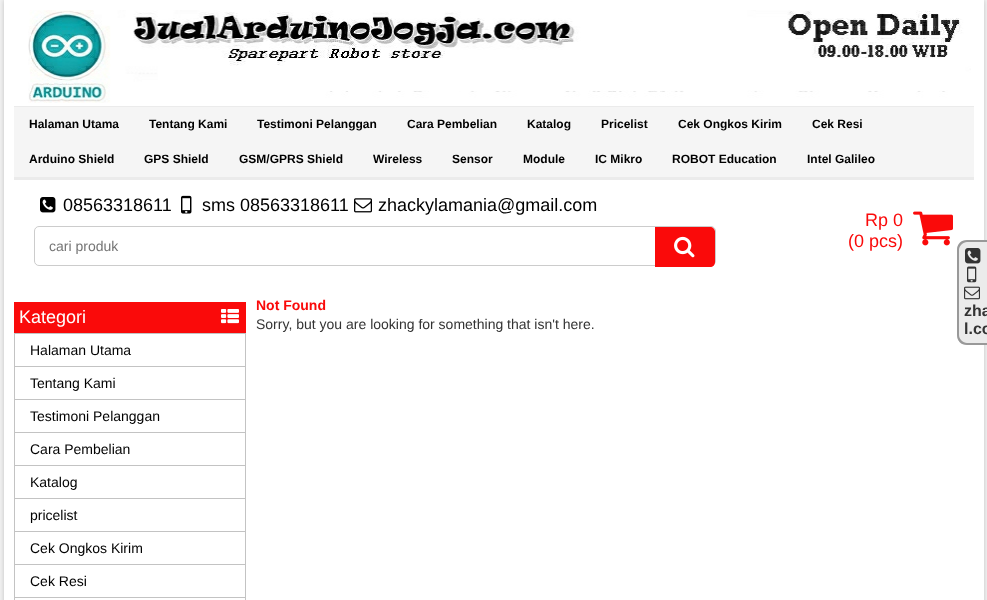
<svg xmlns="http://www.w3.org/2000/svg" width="987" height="600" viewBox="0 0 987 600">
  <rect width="100%" height="100%" fill="#f2f2f2"/>
  <path d="M4 0h980v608H4z" fill="#00000033" filter="blur(2.5px)"/>
  <path d="M4 0h980v600H4z" fill="#fff"/>
  <image x="28" y="10" width="943" height="93" href="img/1.png"/>
  <path d="M14 107h960v70H14z" fill="#f5f5f5"/>
  <path d="M14 106h960v1H14z" fill="#ebebeb"/>
  <path d="M14 177h960v3H14z" fill="#ebebeb"/>
  <image x="40" y="197" width="16" height="16" href="img/2.png"/>
  <image x="181" y="195" width="11" height="19" href="img/3.png"/>
  <image x="354" y="198" width="18" height="15" href="img/4.png"/>
  <rect x="34.5" y="226.5" width="681" height="39" rx="4.5" fill="none" stroke="#ccc"/>
  <path d="M655 227H710C713 227 715 229 715 232V262C715 265 713 267 710 267H655Z" fill="#fa0a0a"/>
  <image x="674" y="236" width="21" height="22" href="img/5.png"/>
  <image x="913" y="211" width="40" height="35" href="img/6.png"/>
  <path d="M14 302h232v31H14z" fill="#fa0a0a"/>
  <image x="221" y="309" width="18" height="15" href="img/7.png"/>
  <path d="M14 333h232v1H14z" fill="#c3c3c3"/>
  <path d="M245 334h1v266H245z" fill="#c3c3c3"/>
  <path d="M14 366h232v1H14z" fill="#c3c3c3"/>
  <path d="M14 334h1v33H14z" fill="#c3c3c3"/>
  <path d="M14 399h232v1H14z" fill="#c3c3c3"/>
  <path d="M14 367h1v33H14z" fill="#c3c3c3"/>
  <path d="M14 432h232v1H14z" fill="#c3c3c3"/>
  <path d="M14 400h1v33H14z" fill="#c3c3c3"/>
  <path d="M14 465h232v1H14z" fill="#c3c3c3"/>
  <path d="M14 433h1v33H14z" fill="#c3c3c3"/>
  <path d="M14 498h232v1H14z" fill="#c3c3c3"/>
  <path d="M14 466h1v33H14z" fill="#c3c3c3"/>
  <path d="M14 531h232v1H14z" fill="#c3c3c3"/>
  <path d="M14 499h1v33H14z" fill="#c3c3c3"/>
  <path d="M14 564h232v1H14z" fill="#c3c3c3"/>
  <path d="M14 532h1v33H14z" fill="#c3c3c3"/>
  <path d="M14 597h232v1H14z" fill="#c3c3c3"/>
  <path d="M14 565h1v35H14z" fill="#c3c3c3"/>
  <path d="M967 240H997V345H967C961.5 345 957 340.5 957 335V250C957 244.5 961.5 240 967 240Z" fill="#ebebeb"/>
  <path d="M967 240H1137V345H967C961 345 957 341 957 335V250C957 244 961 240 967 240ZM967 242H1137V343H967C963 343 959 339 959 335V250C959 246 963 242 967 242Z" fill="#999" fill-rule="evenodd"/>
  <image x="965" y="248" width="16" height="16" href="img/8.png"/>
  <image x="967" y="266" width="10" height="17" href="img/9.png"/>
  <image x="964" y="286" width="16" height="14" href="img/10.png"/>
  <g font-family="Liberation Sans" font-size="12" font-weight="bold" fill="#000">
    <text x="29" y="128">Halaman Utama</text>
    <text x="149" y="128">Tentang Kami</text>
    <text x="257" y="128">Testimoni Pelanggan</text>
    <text x="407" y="128">Cara Pembelian</text>
    <text x="527" y="128">Katalog</text>
    <text x="601" y="128">Pricelist</text>
    <text x="678" y="128">Cek Ongkos Kirim</text>
    <text x="812" y="128">Cek Resi</text>
    <text x="29" y="163">Arduino Shield</text>
    <text x="144" y="163">GPS Shield</text>
    <text x="239" y="163">GSM/GPRS Shield</text>
    <text x="373" y="163">Wireless</text>
    <text x="452" y="163">Sensor</text>
    <text x="523" y="163">Module</text>
    <text x="595" y="163">IC Mikro</text>
    <text x="672" y="163">ROBOT Education</text>
    <text x="807" y="163">Intel Galileo</text>
  </g>
  <g font-family="Liberation Sans" font-size="18" fill="#000">
    <text x="63" y="211">08563318611</text>
    <text x="202" y="211">sms 08563318611</text>
    <text x="378" y="211">zhackylamania@gmail.com</text>
  </g>
  <text x="49" y="251" font-family="Liberation Sans" font-size="14" fill="#757575">cari produk</text>
  <g font-family="Liberation Sans" font-size="18" fill="#fa0a0a">
    <text x="865" y="226">Rp 0</text>
    <text x="848" y="247">(0 pcs)</text>
  </g>
  <text x="19" y="323" font-family="Liberation Sans" font-size="18" fill="#fff">Kategori</text>
  <g font-family="Liberation Sans" font-size="14" fill="#000">
    <text x="30" y="355">Halaman Utama</text>
    <text x="30" y="388">Tentang Kami</text>
    <text x="30" y="421">Testimoni Pelanggan</text>
    <text x="30" y="454">Cara Pembelian</text>
    <text x="30" y="487">Katalog</text>
    <text x="30" y="520">pricelist</text>
    <text x="30" y="553">Cek Ongkos Kirim</text>
    <text x="30" y="586">Cek Resi</text>
  </g>
  <text x="256" y="310" font-family="Liberation Sans" font-size="14" font-weight="bold" fill="#fa0a0a">Not Found</text>
  <text x="256" y="329" font-family="Liberation Sans" font-size="14" fill="#333">Sorry, but you are looking for something that isn't here.</text>
  <g font-family="Liberation Sans" font-size="16" font-weight="bold" fill="#333">
    <text x="964" y="316">zha</text>
    <text x="964" y="334">l.co</text>
  </g>
</svg>
